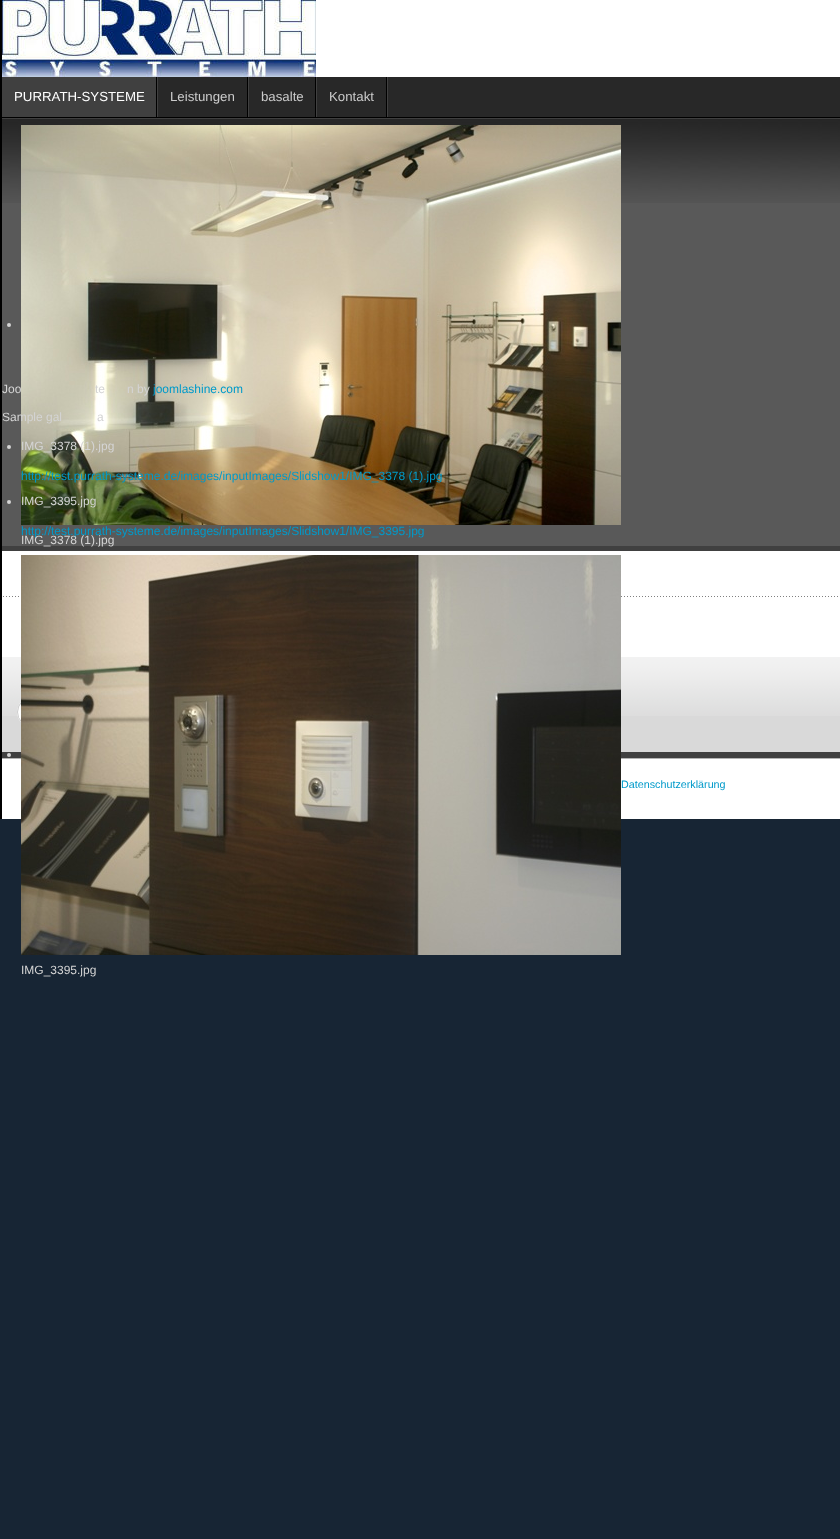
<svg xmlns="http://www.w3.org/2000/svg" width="840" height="1539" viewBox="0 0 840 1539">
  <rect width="100%" height="100%" fill="#172534"/>
  <path d="M2 0h838v819H2z" fill="#fff"/>
  <path d="M0 0h2v819H0z" fill="#000"/>
  <image x="2" y="0" width="314" height="77" href="img/1.png"/>
  <path d="M158 77h682v40H158z" fill="#282828"/>
  <path d="M157 77h1v40H157z" fill="#404040"/>
  <path d="M2 77h154v40H2z" fill="#404040"/>
  <path d="M156 77h1v40H156z" fill="#000"/>
  <path d="M248 77h1v40H248z" fill="#404040"/>
  <path d="M247 77h1v40H247z" fill="#000"/>
  <path d="M316 77h1v40H316z" fill="#404040"/>
  <path d="M315 77h1v40H315z" fill="#000"/>
  <path d="M387 77h1v40H387z" fill="#404040"/>
  <path d="M386 77h1v40H386z" fill="#000"/>
  <path d="M2 203h838v343H2z" fill="#595959"/>
  <image x="2" y="117" width="838" height="86" href="img/2.png"/>
  <path d="M2 546h838v5H2z" fill="#404040"/>
  <circle cx="9" cy="447" r="2" fill="#d4d4d4"/>
  <circle cx="9" cy="502" r="2" fill="#d4d4d4"/>
  <circle cx="9" cy="325" r="2" fill="#d4d4d4"/>
  <image x="21" y="125" width="600" height="400" href="img/3.png"/>
  <path d="M2 752h838v6H2z" fill="#404040"/>
  <circle cx="9" cy="755" r="2" fill="#d4d4d4"/>
  <image x="3" y="596" width="835" height="1" href="img/5.png"/>
  <path d="M2 716h838v36H2z" fill="#d9d9d9"/>
  <image x="2" y="657" width="838" height="59" href="img/6.png"/>
  <rect x="17" y="697" width="180" height="30" rx="15" fill="#fff"/>
  <path d="M32 699H185C193 701 197 708 196 715C196 712 196 709 195 707C189 693 166 698 157 698H57C47 698 16 692 18 713C18 706 23 699 32 699Z" fill="#ececec"/>
  <rect x="17.5" y="697.5" width="179" height="29" rx="14.5" fill="none" stroke="#ccc"/>
  <path d="M2 758h838v1H2z" fill="#b3b3b3"/>
  <image x="21" y="555" width="600" height="400" href="img/4.png"/>
  <text x="14" y="101" font-family="Liberation Sans" font-size="13.25" fill="#fff">PURRATH-SYSTEME</text>
  <g font-family="Liberation Sans" font-size="13.25" fill="#ccc">
    <text x="170" y="101">Leistungen</text>
    <text x="261" y="101">basalte</text>
    <text x="329" y="101">Kontakt</text>
  </g>
  <g font-family="Liberation Sans" font-size="12" fill="#d4d4d4">
    <text x="2" y="393">Joo</text>
    <text x="95" y="393">te</text>
    <text x="127" y="393">n by</text>
  </g>
  <text x="153" y="393" font-family="Liberation Sans" font-size="12" fill="#009aca">joomlashine.com</text>
  <g font-family="Liberation Sans" font-size="12" fill="#d4d4d4">
    <text x="2" y="421">Sample gal</text>
    <text x="97" y="421">a</text>
    <text x="21" y="450">IMG_3378 (1).jpg</text>
  </g>
  <text x="21" y="480" font-family="Liberation Sans" font-size="12" fill="#009aca">http://test.purrath-systeme.de/images/inputImages/Slidshow1/IMG_3378 (1).jpg</text>
  <text x="21" y="505" font-family="Liberation Sans" font-size="12" fill="#d4d4d4">IMG_3395.jpg</text>
  <text x="21" y="535" font-family="Liberation Sans" font-size="12" fill="#009aca">http://test.purrath-systeme.de/images/inputImages/Slidshow1/IMG_3395.jpg</text>
  <g font-family="Liberation Sans" font-size="12" fill="#d4d4d4">
    <text x="21" y="544">IMG_3378 (1).jpg</text>
    <text x="21" y="974">IMG_3395.jpg</text>
  </g>
  <text x="621" y="788" font-family="Liberation Sans" font-size="10.75" fill="#009aca">Datenschutzerklärung</text>
</svg>
